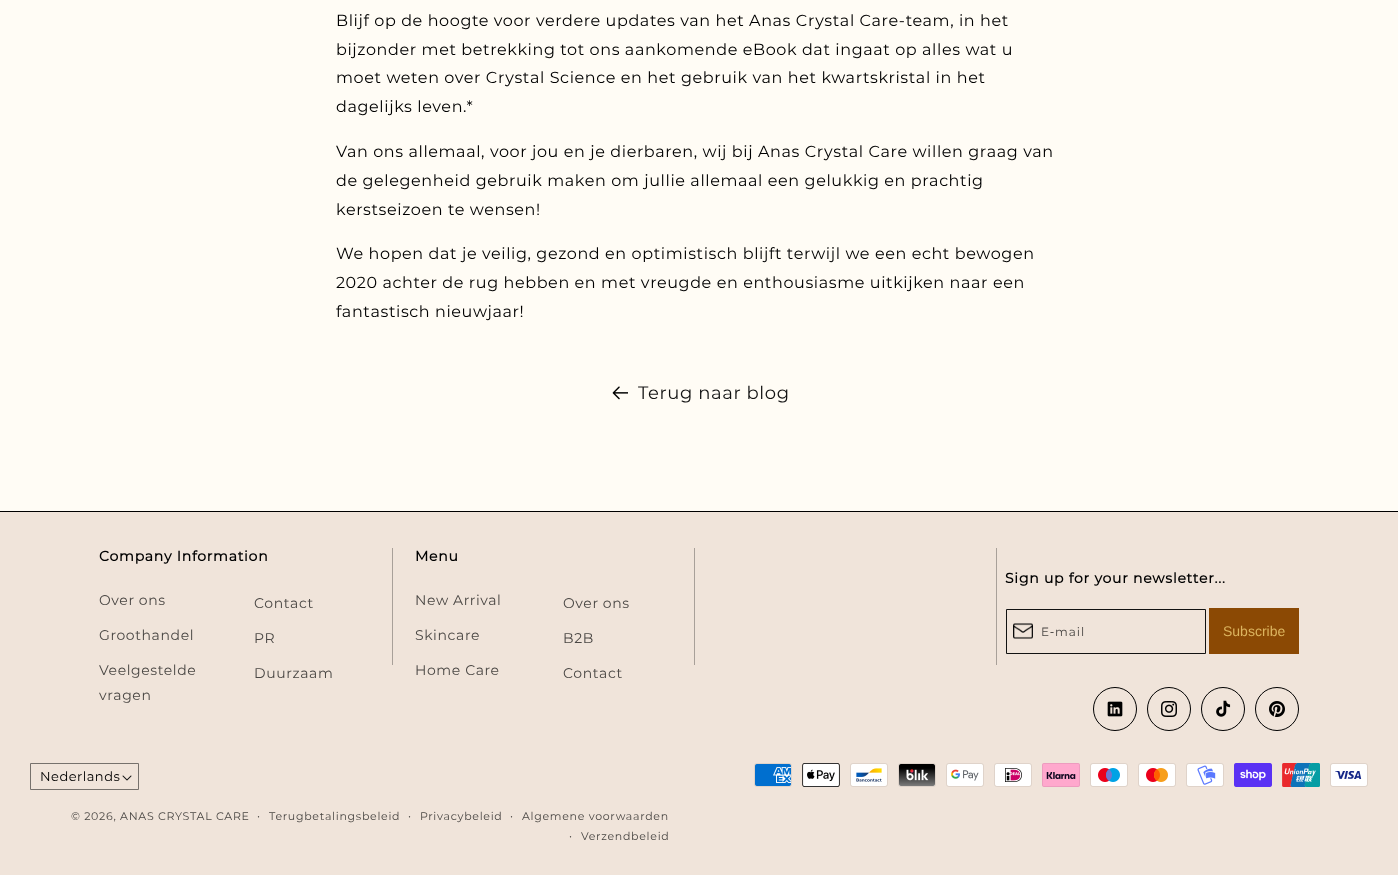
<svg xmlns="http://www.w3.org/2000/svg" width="1398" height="875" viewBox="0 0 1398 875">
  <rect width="100%" height="100%" fill="#fffcf5"/>
  <image x="612" y="386" width="16" height="14" href="img/1.png"/>
  <path d="M0 512h1398v363H0z" fill="#f0e4da"/>
  <path d="M0 511h1398v1H0z" fill="#000"/>
  <path d="M392 548h1v117H392z" fill="#a8a099"/>
  <path d="M694 548h1v117H694z" fill="#a8a099"/>
  <path d="M996 548h1v117H996z" fill="#a8a099"/>
  <path d="M1006.5 609.5h199v44H1006.5z" fill="none" stroke="#121212"/>
  <image x="1013" y="623" width="20" height="16" href="img/2.png"/>
  <path d="M1209 608h90v46H1209z" fill="#8b4904"/>
  <circle cx="1115" cy="709" r="21.5" fill="none" stroke="#000"/>
  <image x="1107" y="701" width="16" height="16" href="img/3.png"/>
  <circle cx="1169" cy="709" r="21.5" fill="none" stroke="#000"/>
  <image x="1161" y="701" width="16" height="16" href="img/4.png"/>
  <circle cx="1223" cy="709" r="21.5" fill="none" stroke="#000"/>
  <image x="1216" y="700" width="15" height="17" href="img/5.png"/>
  <circle cx="1277" cy="709" r="21.5" fill="none" stroke="#000"/>
  <image x="1269" y="701" width="16" height="16" href="img/6.png"/>
  <image x="122" y="775" width="10" height="6" href="img/7.png"/>
  <path d="M30.5 763.5h108v26H30.5z" fill="none" stroke="#76716c"/>
  <image x="754" y="763" width="38" height="24" href="img/8.png"/>
  <image x="802" y="763" width="38" height="24" href="img/9.png"/>
  <image x="850" y="763" width="38" height="24" href="img/10.png"/>
  <image x="898" y="763" width="38" height="24" href="img/11.png"/>
  <image x="946" y="763" width="38" height="24" href="img/12.png"/>
  <image x="994" y="763" width="38" height="24" href="img/13.png"/>
  <image x="1042" y="763" width="38" height="24" href="img/14.png"/>
  <image x="1090" y="763" width="38" height="24" href="img/15.png"/>
  <image x="1138" y="763" width="38" height="24" href="img/16.png"/>
  <image x="1186" y="763" width="38" height="24" href="img/17.png"/>
  <image x="1234" y="763" width="38" height="24" href="img/18.png"/>
  <image x="1282" y="763" width="38" height="24" href="img/19.png"/>
  <image x="1330" y="763" width="38" height="24" href="img/20.png"/>
  <g font-family="Montserrat" font-size="16" letter-spacing="0.6" fill="#000">
    <text x="336" y="26">Blijf op de hoogte voor verdere updates van het Anas Crystal Care-team, in het</text>
    <text x="336" y="55">bijzonder met betrekking tot ons aankomende eBook dat ingaat op alles wat u</text>
    <text x="336" y="83">moet weten over Crystal Science en het gebruik van het kwartskristal in het</text>
    <text x="336" y="112">dagelijks leven.*</text>
    <text x="336" y="157">Van ons allemaal, voor jou en je dierbaren, wij bij Anas Crystal Care willen graag van</text>
    <text x="336" y="186">de gelegenheid gebruik maken om jullie allemaal een gelukkig en prachtig</text>
    <text x="336" y="215">kerstseizoen te wensen!</text>
    <text x="336" y="259">We hopen dat je veilig, gezond en optimistisch blijft terwijl we een echt bewogen</text>
    <text x="336" y="288">2020 achter de rug hebben en met vreugde en enthousiasme uitkijken naar een</text>
    <text x="336" y="317">fantastisch nieuwjaar!</text>
  </g>
  <text x="638" y="399" font-family="Montserrat" font-size="18" letter-spacing="0.6" fill="#121212">Terug naar blog</text>
  <text x="99" y="561" font-family="Montserrat" font-size="14" font-weight="bold" letter-spacing="0.75" fill="#000">Company Information</text>
  <g font-family="Montserrat" font-size="14" letter-spacing="0.6" fill="#4a4744">
    <text x="99" y="605">Over ons</text>
    <text x="254" y="608">Contact</text>
    <text x="99" y="640">Groothandel</text>
    <text x="254" y="643">PR</text>
    <text x="99" y="675">Veelgestelde</text>
    <text x="99" y="700">vragen</text>
    <text x="254" y="678">Duurzaam</text>
  </g>
  <text x="415" y="561" font-family="Montserrat" font-size="14" font-weight="bold" letter-spacing="0.75" fill="#000">Menu</text>
  <g font-family="Montserrat" font-size="14" letter-spacing="0.6" fill="#4a4744">
    <text x="415" y="605">New Arrival</text>
    <text x="563" y="608">Over ons</text>
    <text x="415" y="640">Skincare</text>
    <text x="563" y="643">B2B</text>
    <text x="415" y="675">Home Care</text>
    <text x="563" y="678">Contact</text>
  </g>
  <text x="1005" y="583" font-family="Montserrat" font-size="14" font-weight="bold" letter-spacing="0.75" fill="#000">Sign up for your newsletter...</text>
  <text x="1041" y="636" font-family="Montserrat" font-size="12" letter-spacing="1" fill="#4a4744">E‑mail</text>
  <text x="1223" y="636" font-family="Liberation Sans" font-size="14" fill="#dcb45f">Subscribe</text>
  <text x="40" y="781" font-family="Montserrat" font-size="13" letter-spacing="0.5" fill="#000">Nederlands</text>
  <text x="71" y="820" font-family="Montserrat" font-size="11" letter-spacing="0.7" fill="#4a4744">© 2026, ANAS CRYSTAL CARE</text>
  <text x="257" y="820" font-family="Montserrat" font-size="12" letter-spacing="0.7" fill="#4a4744">·</text>
  <text x="269" y="820" font-family="Montserrat" font-size="11" letter-spacing="0.7" fill="#4a4744">Terugbetalingsbeleid</text>
  <text x="408" y="820" font-family="Montserrat" font-size="12" letter-spacing="0.7" fill="#4a4744">·</text>
  <text x="420" y="820" font-family="Montserrat" font-size="11" letter-spacing="0.7" fill="#4a4744">Privacybeleid</text>
  <text x="510" y="820" font-family="Montserrat" font-size="12" letter-spacing="0.7" fill="#4a4744">·</text>
  <text x="522" y="820" font-family="Montserrat" font-size="11" letter-spacing="0.7" fill="#4a4744">Algemene voorwaarden</text>
  <text x="569" y="840" font-family="Montserrat" font-size="12" letter-spacing="0.7" fill="#4a4744">·</text>
  <text x="581" y="840" font-family="Montserrat" font-size="11" letter-spacing="0.7" fill="#4a4744">Verzendbeleid</text>
</svg>
